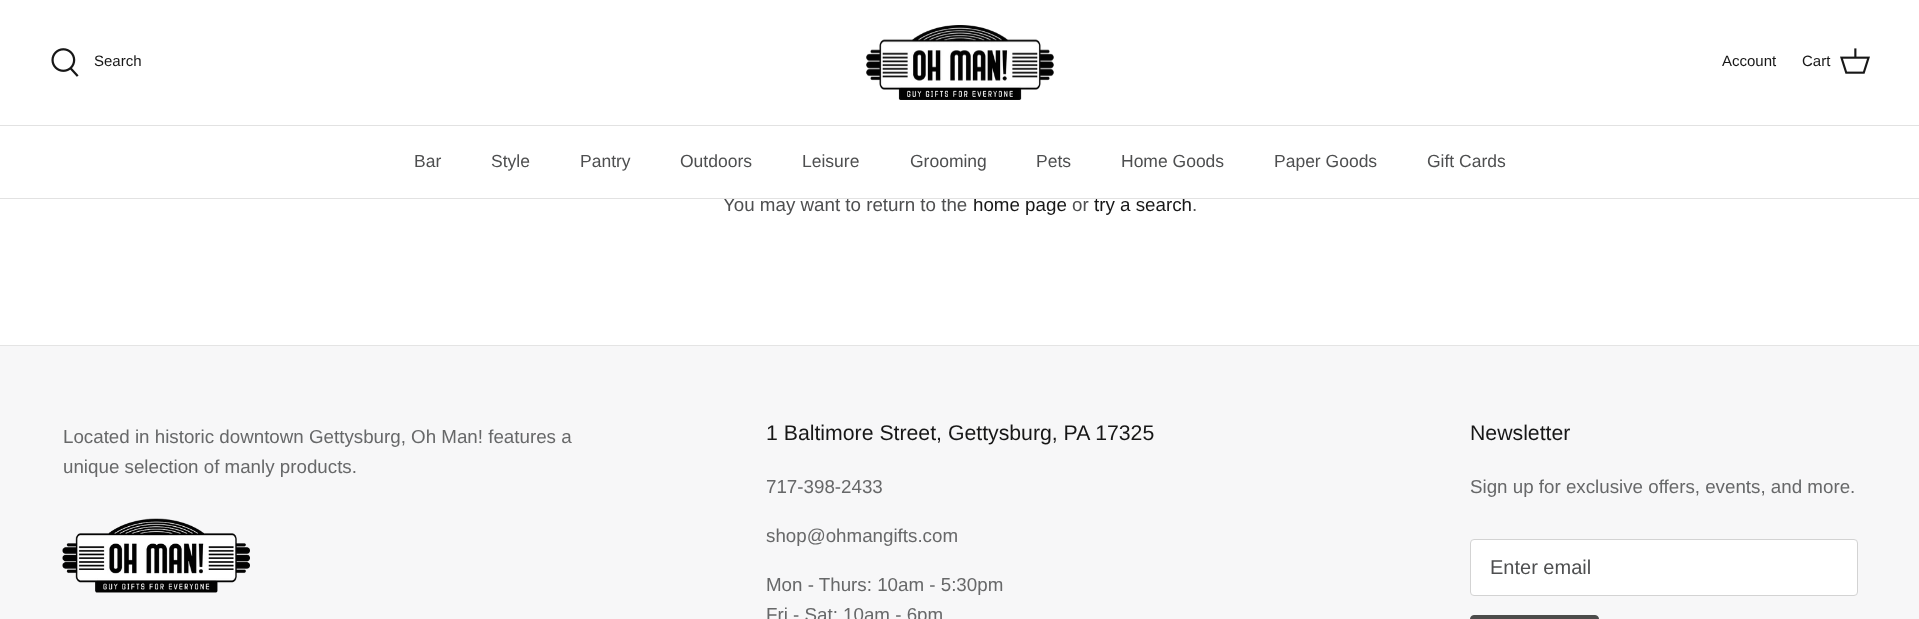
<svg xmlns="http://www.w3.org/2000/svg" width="1919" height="619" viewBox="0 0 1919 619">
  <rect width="100%" height="100%" fill="#fff"/>
  <path d="M0 125h1919v1H0z" fill="#e2e2e2"/>
  <image x="51" y="48" width="28" height="29" href="img/1.png"/>
  <image x="866" y="25" width="188" height="75" href="img/2.png"/>
  <image x="1840" y="48" width="30" height="26" href="img/3.png"/>
  <path d="M0 346h1919v273H0z" fill="#f7f7f8"/>
  <path d="M0 345h1919v1H0z" fill="#e4e4e4"/>
  <image x="62" y="518" width="188" height="75" href="img/4.png"/>
  <rect x="1470.5" y="539.5" width="387" height="56" rx="3.5" fill="#fff" stroke="#d3d3d3"/>
  <rect x="1470.5" y="615.5" width="128" height="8" rx="3.5" fill="#4c4c4b" stroke="#4c4c4b"/>
  <g font-family="Arimo" font-size="15" fill="#171717">
    <text x="94" y="66">Search</text>
    <text x="1722" y="66">Account</text>
    <text x="1802" y="66">Cart</text>
  </g>
  <g font-family="Arimo" font-size="17.5" fill="#4e4f50">
    <text x="414" y="167">Bar</text>
    <text x="491" y="167">Style</text>
    <text x="580" y="167">Pantry</text>
    <text x="680" y="167">Outdoors</text>
    <text x="802" y="167">Leisure</text>
    <text x="910" y="167">Grooming</text>
    <text x="1036" y="167">Pets</text>
    <text x="1121" y="167">Home Goods</text>
    <text x="1274" y="167">Paper Goods</text>
    <text x="1427" y="167">Gift Cards</text>
  </g>
  <text x="723" y="211" font-family="Arimo" font-size="18.75" fill="#4e4f50">You may want to return to the</text>
  <text x="973" y="211" font-family="Arimo" font-size="18.75" fill="#171717">home page</text>
  <text x="1072" y="211" font-family="Arimo" font-size="18.75" fill="#4e4f50">or</text>
  <text x="1094" y="211" font-family="Arimo" font-size="18.75" fill="#171717">try a search</text>
  <path d="M947 197h238v1H947z" fill="#fff"/>
  <path d="M0 198h1919v1H0z" fill="#e2e2e2"/>
  <text x="1192" y="211" font-family="Arimo" font-size="18.75" fill="#4e4f50">.</text>
  <g font-family="Arimo" font-size="18.75" fill="#676869">
    <text x="63" y="443">Located in historic downtown Gettysburg, Oh Man! features a</text>
    <text x="63" y="473">unique selection of manly products.</text>
  </g>
  <text x="766" y="440" font-family="Arimo" font-size="21.25" fill="#171717">1 Baltimore Street, Gettysburg, PA 17325</text>
  <g font-family="Arimo" font-size="18.75" fill="#676869">
    <text x="766" y="493">717-398-2433</text>
    <text x="766" y="542">shop@ohmangifts.com</text>
    <text x="766" y="591">Mon - Thurs: 10am - 5:30pm</text>
    <text x="766" y="621">Fri - Sat: 10am - 6pm</text>
  </g>
  <text x="1470" y="440" font-family="Arimo" font-size="21.25" fill="#171717">Newsletter</text>
  <text x="1470" y="493" font-family="Arimo" font-size="18.75" fill="#676869">Sign up for exclusive offers, events, and more.</text>
  <text x="1490" y="574" font-family="Arimo" font-size="20" fill="#4e4f50">Enter email</text>
</svg>
